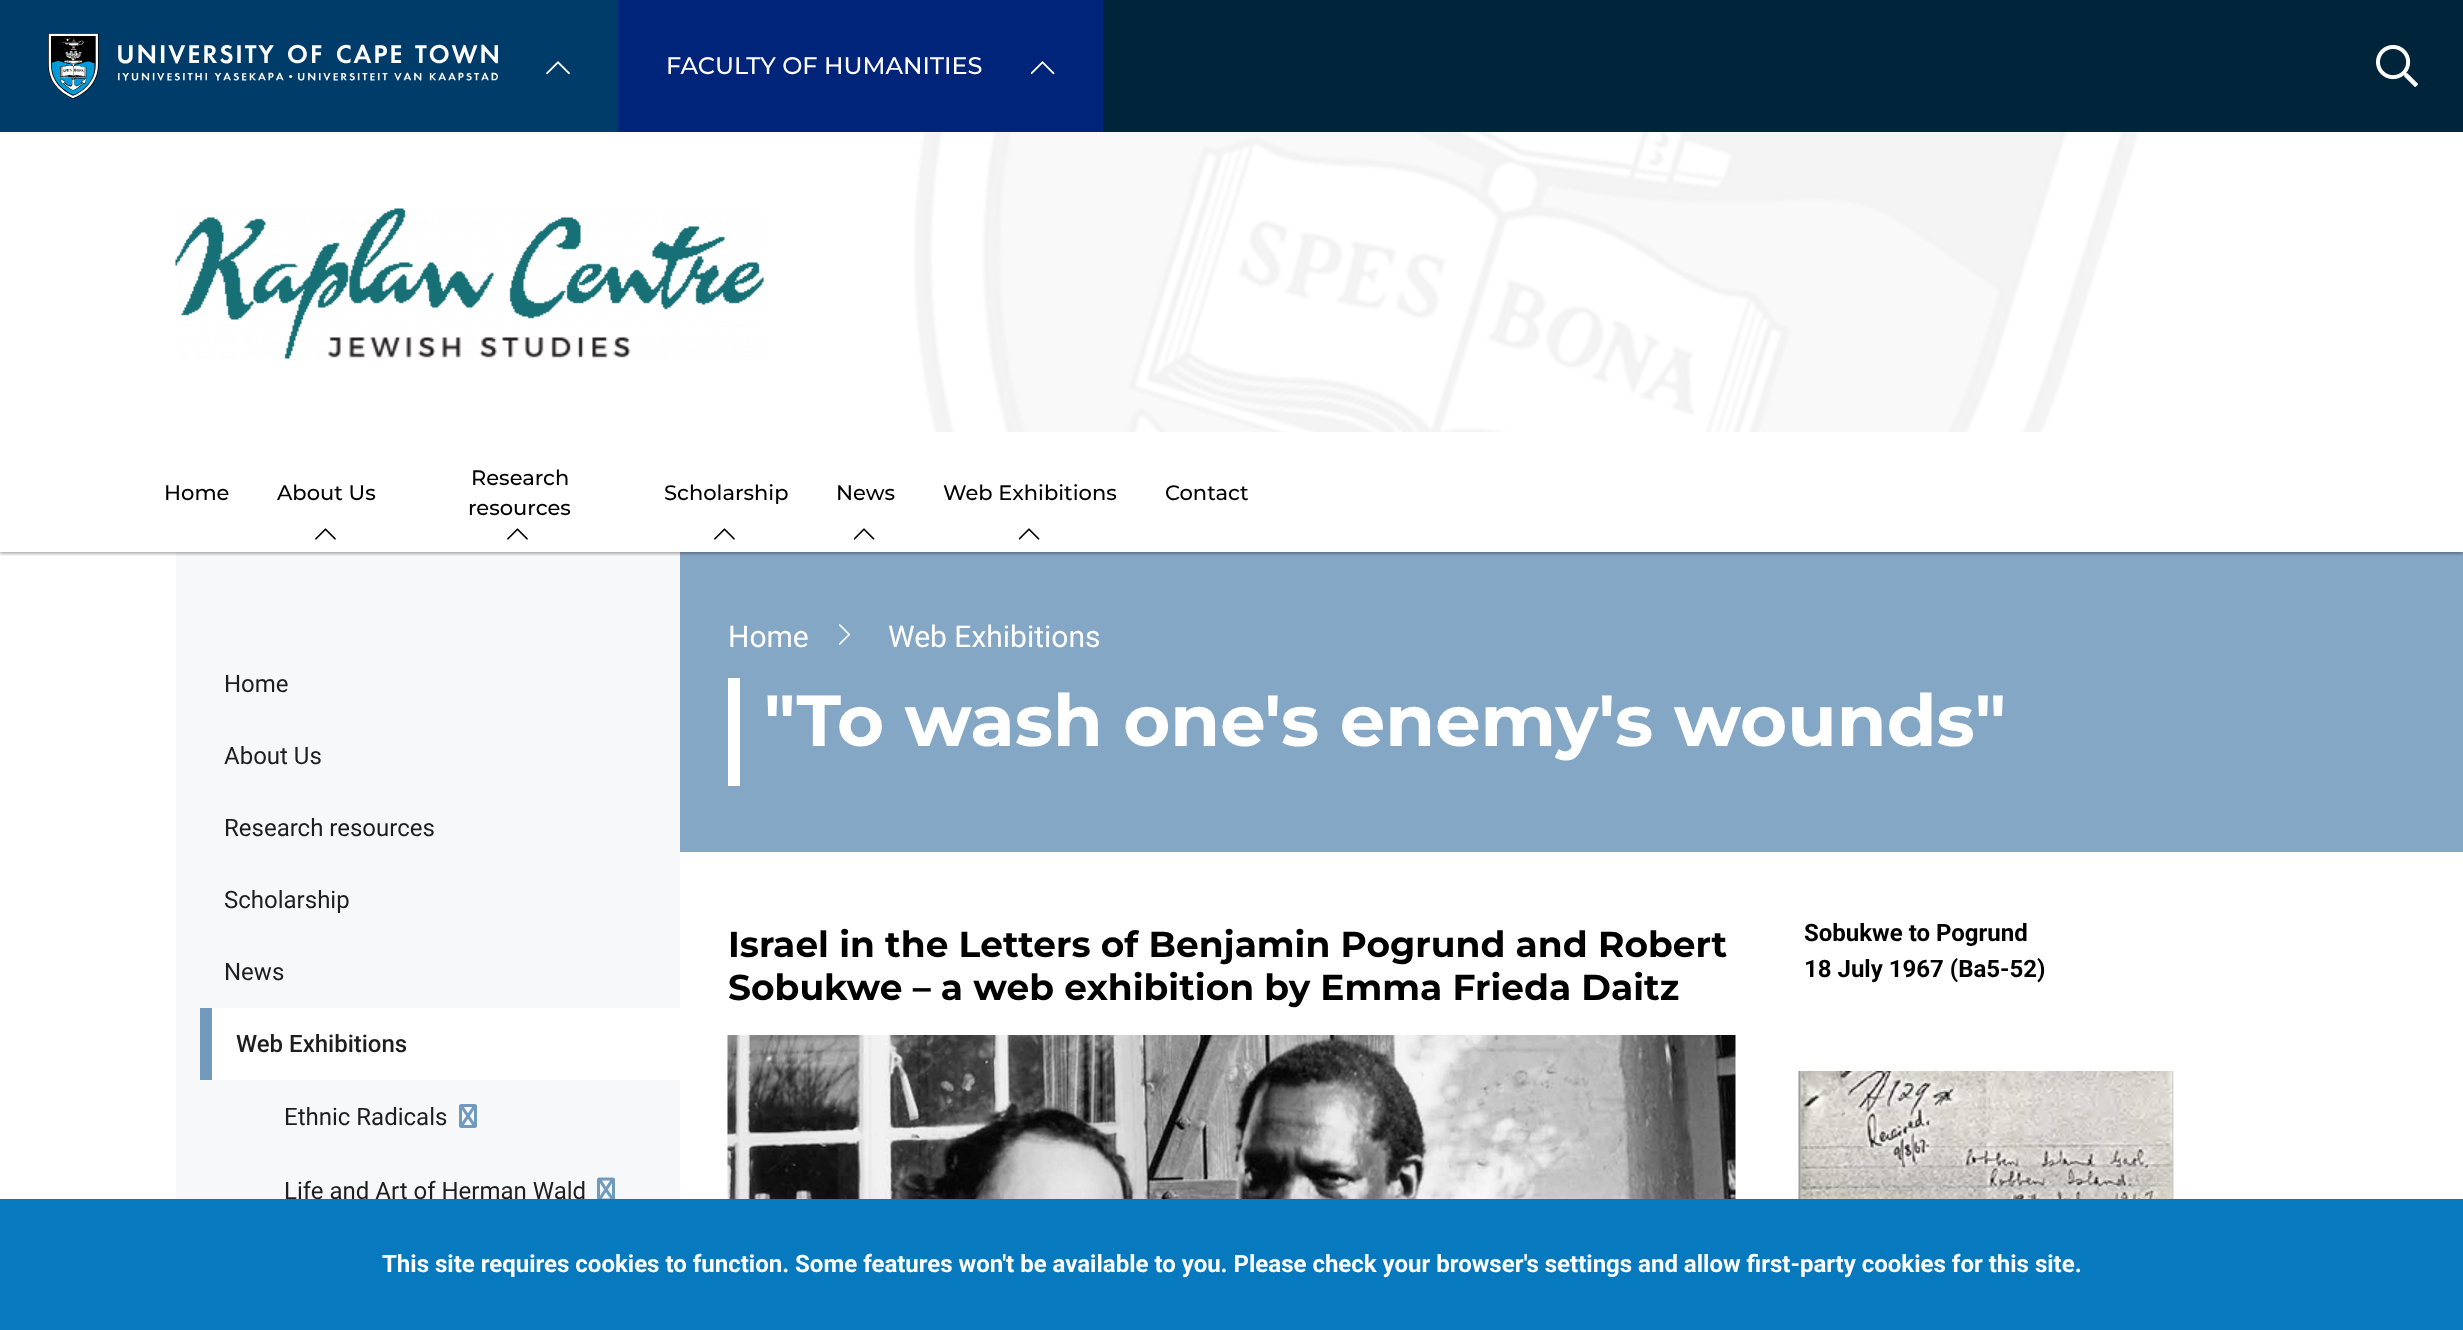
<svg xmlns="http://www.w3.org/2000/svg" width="2463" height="1330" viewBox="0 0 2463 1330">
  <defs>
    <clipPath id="clip1"><path d="M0 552h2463v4H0z"/></clipPath>
  </defs>
  <rect width="100%" height="100%" fill="#fff"/>
  <path d="M1103 0h1360v132H1103z" fill="#00243a"/>
  <path d="M0 0h618v132H0z" fill="#003c69"/>
  <image x="48" y="33" width="450" height="66" href="img/1.png"/>
  <image x="546" y="61" width="24" height="14" href="img/2.png"/>
  <path d="M618 0h485v132H618z" fill="#002479"/>
  <image x="1031" y="61" width="24" height="14" href="img/3.png"/>
  <image x="2376" y="45" width="42" height="42" href="img/4.png"/>
  <image x="914" y="132" width="1225" height="300" href="img/5.png"/>
  <image x="175" y="208" width="589" height="151" href="img/6.png"/>
  <path d="M176 552h504v647H176z" fill="#f7f8f9"/>
  <path d="M680 552h1783v300H680z" fill="#85a7c6"/>
  <g clip-path="url(#clip1)">
    <path d="M0 434h2463v120H0z" fill="#0000004d" filter="blur(1.5px)"/>
  </g>
  <image x="315" y="528" width="21" height="12" href="img/7.png"/>
  <image x="507" y="528" width="21" height="12" href="img/7.png"/>
  <image x="714" y="528" width="21" height="12" href="img/7.png"/>
  <image x="854" y="528" width="21" height="12" href="img/8.png"/>
  <image x="1019" y="528" width="21" height="12" href="img/8.png"/>
  <path d="M212 1008h468v72H212z" fill="#fff"/>
  <path d="M200 1008h12v72H200z" fill="#729abd"/>
  <image x="459" y="1104" width="18" height="24" href="img/9.png"/>
  <image x="597" y="1177" width="18" height="22" href="img/10.png"/>
  <image x="839" y="624" width="12" height="21" href="img/11.png"/>
  <path d="M728 678h12v108H728z" fill="#fff"/>
  <image x="727" y="1035" width="1009" height="164" href="img/12.png"/>
  <image x="1798" y="1071" width="376" height="128" href="img/13.png"/>
  <text x="666" y="74" font-family="Montserrat" font-size="24" font-weight="500" fill="#fff">FACULTY OF HUMANITIES</text>
  <g font-family="Montserrat" font-size="21" font-weight="500" fill="#000">
    <text x="164" y="500">Home</text>
    <text x="277" y="500">About Us</text>
    <text x="471" y="485">Research</text>
    <text x="468" y="515">resources</text>
    <text x="664" y="500">Scholarship</text>
    <text x="836" y="500">News</text>
    <text x="943" y="500">Web Exhibitions</text>
    <text x="1165" y="500">Contact</text>
  </g>
  <g font-family="Roboto" font-size="24" fill="#1e1e1e">
    <text x="224" y="692">Home</text>
    <text x="224" y="764">About Us</text>
    <text x="224" y="836">Research resources</text>
    <text x="224" y="908">Scholarship</text>
    <text x="224" y="980">News</text>
  </g>
  <text x="236" y="1052" font-family="Roboto" font-size="24" font-weight="500" fill="#1e1e1e">Web Exhibitions</text>
  <g font-family="Roboto" font-size="24" fill="#1e1e1e">
    <text x="284" y="1125">Ethnic Radicals</text>
    <text x="284" y="1199">Life and Art of Herman Wald</text>
  </g>
  <g font-family="Roboto" font-size="30" fill="#fff">
    <text x="728" y="647">Home</text>
    <text x="888" y="647">Web Exhibitions</text>
  </g>
  <text x="764" y="746" font-family="Montserrat" font-size="72" font-weight="bold" fill="#fff">"To wash one's enemy's wounds"</text>
  <g font-family="Montserrat" font-size="36" font-weight="bold" fill="#000">
    <text x="728" y="957">Israel in the Letters of Benjamin Pogrund and Robert</text>
    <text x="728" y="1000">Sobukwe – a web exhibition by Emma Frieda Daitz</text>
  </g>
  <g font-family="Roboto" font-size="24" font-weight="bold" fill="#000">
    <text x="1804" y="941">Sobukwe to Pogrund</text>
    <text x="1804" y="977">18 July 1967 (Ba5-52)</text>
  </g>
  <path d="M0 1199h2463v131H0z" fill="#0779bf"/>
  <text x="382" y="1272" font-family="Roboto" font-size="24" font-weight="bold" fill="#fff">This site requires cookies to function. Some features won't be available to you. Please check your browser's settings and allow first-party cookies for this site.</text>
</svg>
